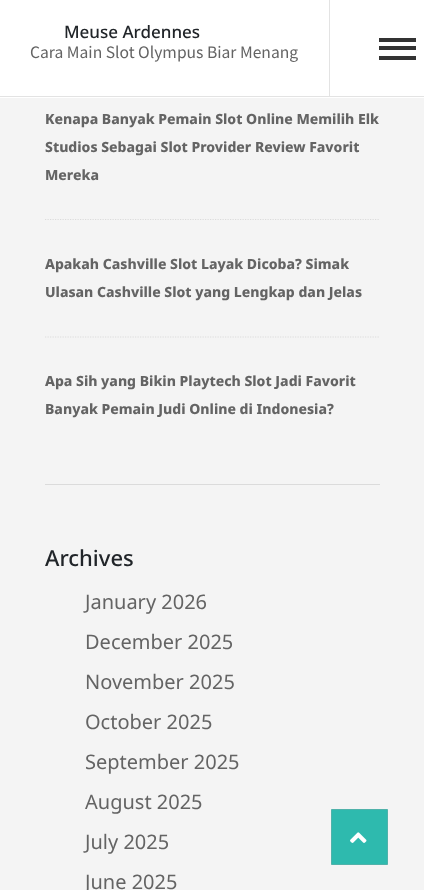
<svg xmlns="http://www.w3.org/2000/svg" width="424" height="890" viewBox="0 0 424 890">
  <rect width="100%" height="100%" fill="#f4f4f4"/>
  <path d="M0 0h424v98H0z" fill="#fff"/>
  <path d="M0 96h424v1H0z" fill="#e3e3e3"/>
  <path d="M329 0h1v96H329z" fill="#e3e3e3"/>
  <path d="M379 38h37v4H379z" fill="#333"/>
  <path d="M379 46h37v4H379z" fill="#333"/>
  <path d="M379 56h37v4H379z" fill="#333"/>
  <path d="M45 219.5H380" fill="none" stroke="#dbdbdb" stroke-width="1.2" stroke-dasharray="1.25 1.25"/>
  <path d="M45 337H380" fill="none" stroke="#dbdbdb" stroke-width="1.2" stroke-dasharray="1.25 1.25"/>
  <path d="M45 484h335v1H45z" fill="#dbdbdb"/>
  <path d="M331.5 809.5h56v55H331.5z" fill="#2ebaae" stroke="#50b2aa"/>
  <image x="350" y="832" width="17" height="11" href="img/1.png"/>
  <text x="64" y="38" font-family="Noto Sans" font-size="17" font-weight="500" fill="#212529">Meuse Ardennes</text>
  <text x="30" y="58" font-family="Source Sans Pro" font-size="17.5" fill="#646464">Cara Main Slot Olympus Biar Menang</text>
  <g font-family="Noto Sans" font-size="14" font-weight="800" fill="#646464">
    <text x="45" y="124">Kenapa Banyak Pemain Slot Online Memilih Elk</text>
    <text x="45" y="152">Studios Sebagai Slot Provider Review Favorit</text>
    <text x="45" y="180">Mereka</text>
    <text x="45" y="269">Apakah Cashville Slot Layak Dicoba? Simak</text>
    <text x="45" y="297">Ulasan Cashville Slot yang Lengkap dan Jelas</text>
    <text x="45" y="386">Apa Sih yang Bikin Playtech Slot Jadi Favorit</text>
    <text x="45" y="414">Banyak Pemain Judi Online di Indonesia?</text>
  </g>
  <text x="45" y="566" font-family="Noto Sans" font-size="22" font-weight="500" fill="#212529">Archives</text>
  <g font-family="Noto Sans" font-size="20" fill="#646464">
    <text x="85" y="609">January 2026</text>
    <text x="85" y="649">December 2025</text>
    <text x="85" y="689">November 2025</text>
    <text x="85" y="729">October 2025</text>
    <text x="85" y="769">September 2025</text>
    <text x="85" y="809">August 2025</text>
    <text x="85" y="849">July 2025</text>
    <text x="85" y="889">June 2025</text>
  </g>
</svg>
